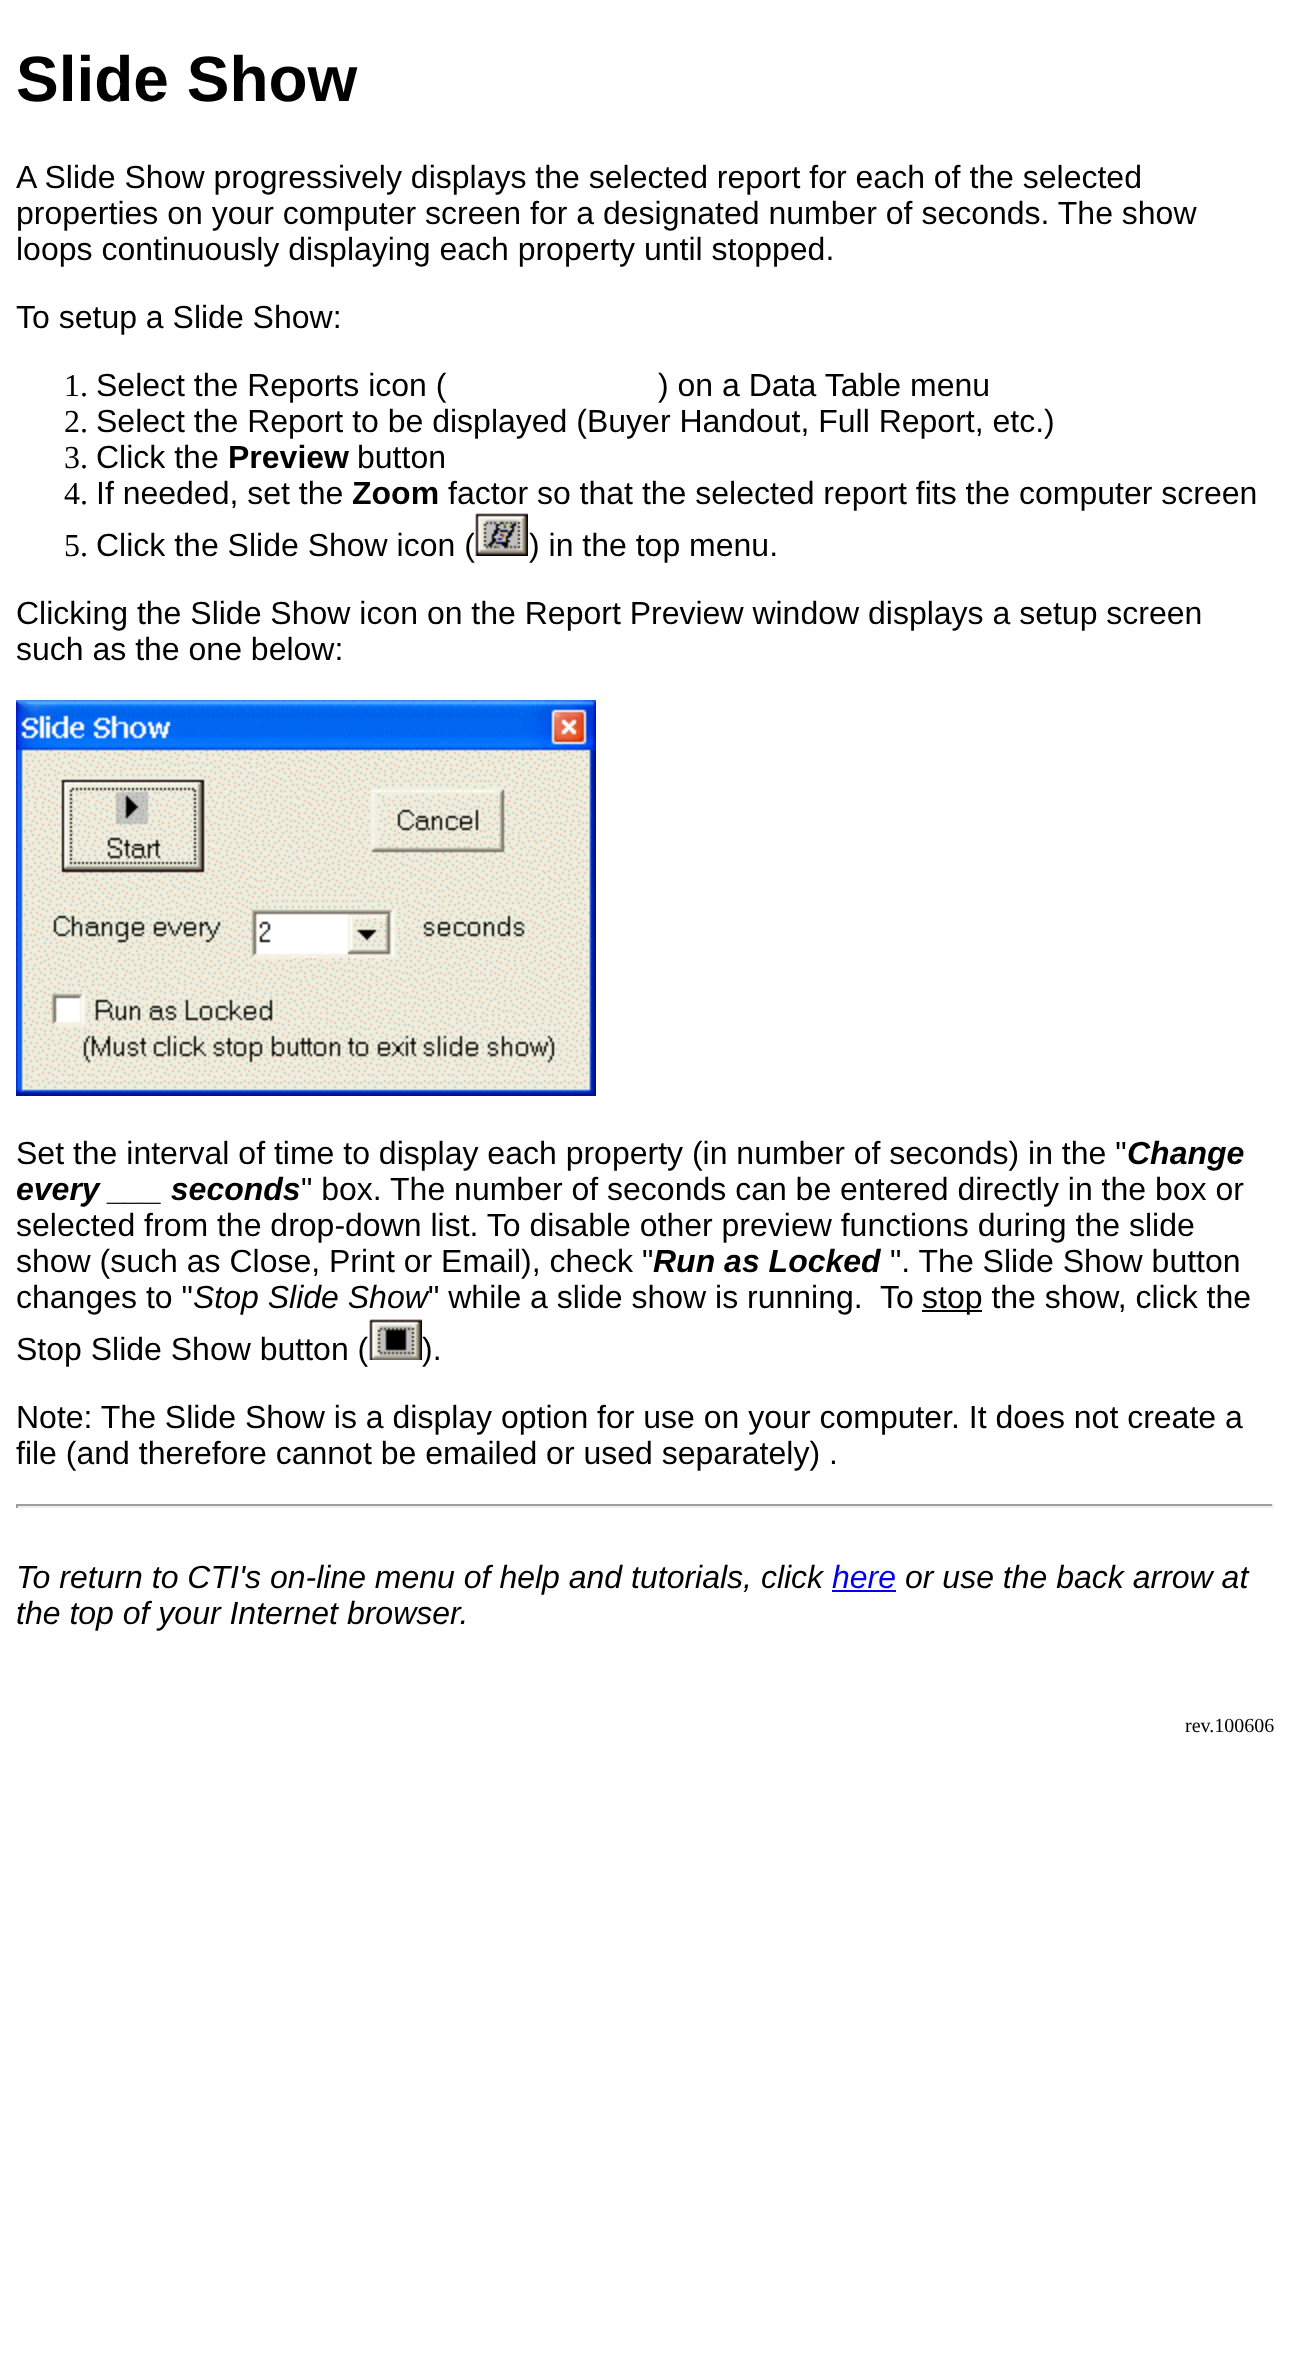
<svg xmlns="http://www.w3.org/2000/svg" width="1289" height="2361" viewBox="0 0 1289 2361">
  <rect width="100%" height="100%" fill="#fff"/>
  <image x="16" y="700" width="580" height="396" href="img/2.png"/>
  <path d="M922 1310h60v2H922z" fill="#000"/>
  <image x="369" y="1319" width="53" height="41" href="img/3.png"/>
  <path d="M16 1504h1258v2H16z" fill="#9f9f9f"/>
  <path d="M1272 1504h2v4H1272z" fill="#eee"/>
  <path d="M16 1506h1258v2H16z" fill="#eee"/>
  <path d="M16 1504h2v4H16z" fill="#9f9f9f"/>
  <path d="M832 1590h64v2H832z" fill="#00e"/>
  <text x="16" y="101" font-family="Liberation Sans" font-size="64" font-weight="bold" fill="#000">Slide Show</text>
  <g font-family="Liberation Sans" font-size="32" fill="#000">
    <text x="16" y="188">A Slide Show progressively displays the selected report for each of the selected</text>
    <text x="16" y="224">properties on your computer screen for a designated number of seconds. The show</text>
    <text x="16" y="260">loops continuously displaying each property until stopped.</text>
    <text x="16" y="328">To setup a Slide Show:</text>
  </g>
  <text x="64" y="396" font-family="Liberation Serif" font-size="32" fill="#000">1.</text>
  <g font-family="Liberation Sans" font-size="32" fill="#000">
    <text x="96" y="396">Select the Reports icon (</text>
    <text x="658" y="396">) on a Data Table menu</text>
  </g>
  <text x="64" y="432" font-family="Liberation Serif" font-size="32" fill="#000">2.</text>
  <text x="96" y="432" font-family="Liberation Sans" font-size="32" fill="#000">Select the Report to be displayed (Buyer Handout, Full Report, etc.)</text>
  <text x="64" y="468" font-family="Liberation Serif" font-size="32" fill="#000">3.</text>
  <text x="96" y="468" font-family="Liberation Sans" font-size="32" fill="#000">Click the</text>
  <text x="228" y="468" font-family="Liberation Sans" font-size="32" font-weight="bold" fill="#000">Preview</text>
  <text x="357" y="468" font-family="Liberation Sans" font-size="32" fill="#000">button</text>
  <text x="64" y="504" font-family="Liberation Serif" font-size="32" fill="#000">4.</text>
  <text x="96" y="504" font-family="Liberation Sans" font-size="32" fill="#000">If needed, set the</text>
  <text x="352" y="504" font-family="Liberation Sans" font-size="32" font-weight="bold" fill="#000">Zoom</text>
  <text x="448" y="504" font-family="Liberation Sans" font-size="32" fill="#000">factor so that the selected report fits the computer screen</text>
  <text x="64" y="556" font-family="Liberation Serif" font-size="32" fill="#000">5.</text>
  <text x="96" y="556" font-family="Liberation Sans" font-size="32" fill="#000">Click the Slide Show icon (</text>
  <image x="474" y="513" width="54" height="43" href="img/1.png"/>
  <g font-family="Liberation Sans" font-size="32" fill="#000">
    <text x="529" y="556">) in the top menu.</text>
    <text x="16" y="624">Clicking the Slide Show icon on the Report Preview window displays a setup screen</text>
    <text x="16" y="660">such as the one below:</text>
    <text x="16" y="1164">Set the interval of time to display each property (in number of seconds) in the "</text>
  </g>
  <g font-family="Liberation Sans" font-size="32" font-weight="bold" font-style="italic" fill="#000">
    <text x="1127" y="1164">Change</text>
    <text x="16" y="1200">every ___ seconds</text>
  </g>
  <g font-family="Liberation Sans" font-size="32" fill="#000">
    <text x="301" y="1200">" box. The number of seconds can be entered directly in the box or</text>
    <text x="16" y="1236">selected from the drop-down list. To disable other preview functions during the slide</text>
    <text x="16" y="1272">show (such as Close, Print or Email), check "</text>
  </g>
  <text x="653" y="1272" font-family="Liberation Sans" font-size="32" font-weight="bold" font-style="italic" fill="#000">Run as Locked</text>
  <g font-family="Liberation Sans" font-size="32" fill="#000">
    <text x="890" y="1272">". The Slide Show button</text>
    <text x="16" y="1308">changes to "</text>
  </g>
  <text x="193" y="1308" font-family="Liberation Sans" font-size="32" font-style="italic" fill="#000">Stop Slide Show</text>
  <g font-family="Liberation Sans" font-size="32" fill="#000">
    <text x="428" y="1308" xml:space="preserve">" while a slide show is running.  To</text>
    <text x="922" y="1308">stop the show, click the</text>
    <text x="16" y="1360">Stop Slide Show button (</text>
    <text x="422" y="1360">).</text>
    <text x="16" y="1428">Note: The Slide Show is a display option for use on your computer. It does not create a</text>
    <text x="16" y="1464">file (and therefore cannot be emailed or used separately) .</text>
  </g>
  <text x="16" y="1588" font-family="Liberation Sans" font-size="32" font-style="italic" fill="#000">To return to CTI's on-line menu of help and tutorials, click</text>
  <text x="832" y="1588" font-family="Liberation Sans" font-size="32" font-style="italic" fill="#00e">here</text>
  <g font-family="Liberation Sans" font-size="32" font-style="italic" fill="#000">
    <text x="905" y="1588">or use the back arrow at</text>
    <text x="16" y="1624">the top of your Internet browser.</text>
  </g>
  <text x="1185" y="1732" font-family="Liberation Serif" font-size="20" fill="#000">rev.100606</text>
</svg>
